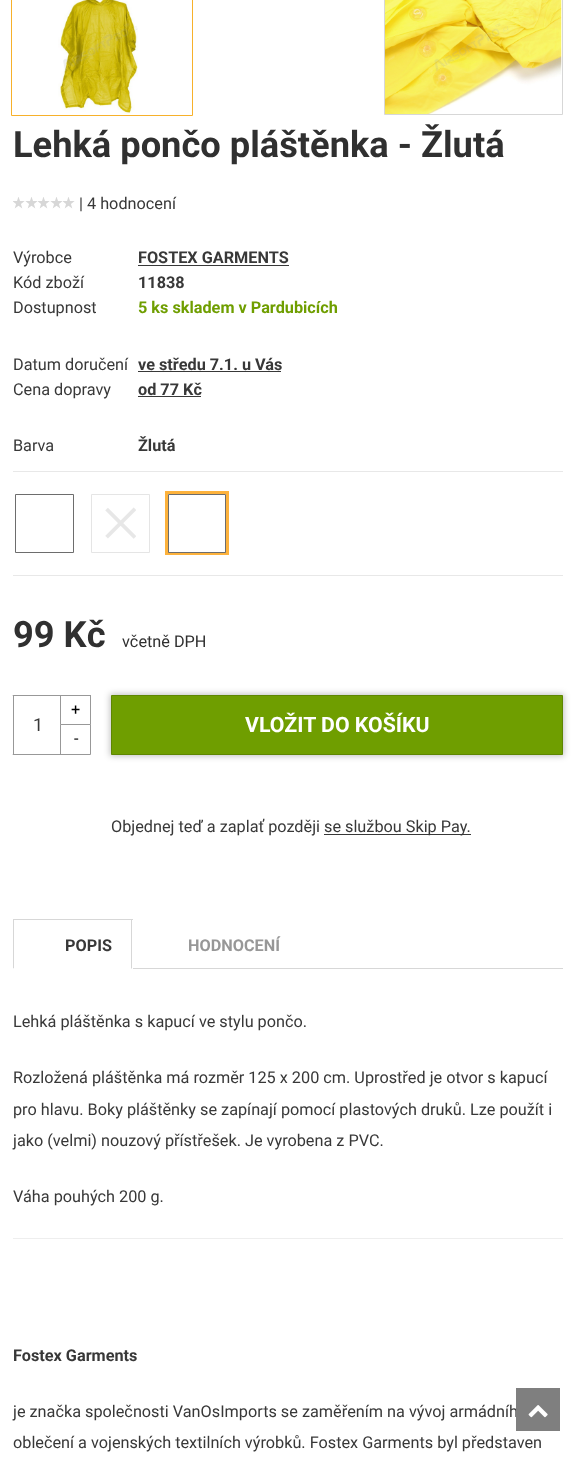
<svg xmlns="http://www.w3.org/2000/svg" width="575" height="1475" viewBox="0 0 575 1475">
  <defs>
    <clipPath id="clip1"><path d="M13 919h550v50H13z"/></clipPath>
  </defs>
  <rect width="100%" height="100%" fill="#fff"/>
  <path d="M11.5 -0.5h181v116H11.5z" fill="none" stroke="#f7b12b"/>
  <image x="58" y="0" width="80" height="114" href="img/1.png"/>
  <path d="M384.5 -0.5h178v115H384.5z" fill="none" stroke="#d7d7d7"/>
  <image x="385" y="0" width="177" height="114" href="img/2.png"/>
  <image x="13" y="197" width="62" height="12" href="img/3.png"/>
  <path d="M138 265h151v1H138z" fill="#383838"/>
  <path d="M138 371h143v1H138z" fill="#383838"/>
  <path d="M138 396h63v1H138z" fill="#383838"/>
  <path d="M13 575h550v1H13z" fill="#e8e8e8"/>
  <path d="M13 471h550v1H13z" fill="#e8e8e8"/>
  <path d="M15.5 494.5h58v58H15.5z" fill="none" stroke="#6d6d6d"/>
  <path d="M91.5 494.5h58v58H91.5z" fill="none" stroke="#e5e5e5"/>
  <image x="105" y="507" width="31" height="32" href="img/4.png"/>
  <path d="M166.5 492.5h61v61H166.5z" fill="none" stroke="#fdb23c" stroke-width="3"/>
  <path d="M168.5 494.5h57v58H168.5z" fill="none" stroke="#6d6d6d"/>
  <path d="M12 695H62L61 696H14ZM62 755H12L14 754H61Z" fill="#989898"/>
  <path d="M13 695h1v60H13z" fill="#989898"/>
  <path d="M60 695h31v1H60z" fill="#989898"/>
  <path d="M91 695V725L90 724V696ZM60 725V695L61 696V724Z" fill="#989898"/>
  <path d="M60.5 724.5h30v30H60.5z" fill="none" stroke="#989898"/>
  <path d="M110 694h454v62H110z" fill="#00000040" filter="blur(3px)"/>
  <path d="M111.5 695.5h451v59H111.5z" fill="#6f9e00" stroke="#5e8601"/>
  <path d="M324 834h147v1H324z" fill="#383838"/>
  <path d="M13 919h120v1H13z" fill="#d7d7d7"/>
  <path d="M132 919V969L131 968V920Z" fill="#d7d7d7"/>
  <g clip-path="url(#clip1)">
    <path d="M12 969V919L14 920V968Z" fill="#d7d7d7"/>
  </g>
  <path d="M133 968h430v1H133z" fill="#d7d7d7"/>
  <path d="M13 1238h550v1H13z" fill="#eee"/>
  <text x="13" y="157" font-family="Roboto" font-size="36.25" font-weight="bold" fill="#303030">Lehká pončo pláštěnka - Žlutá</text>
  <g font-family="Roboto" font-size="16.25" fill="#383838">
    <text x="79" y="209">| 4 hodnocení</text>
    <text x="13" y="263">Výrobce</text>
  </g>
  <text x="138" y="263" font-family="Roboto" font-size="16.25" font-weight="bold" fill="#383838">FOSTEX GARMENTS</text>
  <text x="13" y="288" font-family="Roboto" font-size="16.25" fill="#383838">Kód zboží</text>
  <text x="138" y="288" font-family="Roboto" font-size="16.25" font-weight="bold" fill="#383838">11838</text>
  <text x="13" y="313" font-family="Roboto" font-size="16.25" fill="#383838">Dostupnost</text>
  <text x="138" y="313" font-family="Roboto" font-size="16.25" font-weight="bold" fill="#6f9e00">5 ks skladem v Pardubicích</text>
  <text x="13" y="370" font-family="Roboto" font-size="16.25" fill="#383838">Datum doručení</text>
  <text x="138" y="370" font-family="Roboto" font-size="16.25" font-weight="bold" fill="#383838">ve středu 7.1. u Vás</text>
  <text x="13" y="395" font-family="Roboto" font-size="16.25" fill="#383838">Cena dopravy</text>
  <text x="138" y="395" font-family="Roboto" font-size="16.25" font-weight="bold" fill="#383838">od 77 Kč</text>
  <text x="13" y="451" font-family="Roboto" font-size="16.25" fill="#383838">Barva</text>
  <text x="138" y="451" font-family="Roboto" font-size="16.25" font-weight="bold" fill="#383838">Žlutá</text>
  <text x="13" y="647" font-family="Roboto" font-size="36.25" font-weight="bold" fill="#303030">99 Kč</text>
  <text x="122" y="647" font-family="Roboto" font-size="16.25" fill="#303030">včetně DPH</text>
  <text x="33" y="731" font-family="Roboto" font-size="18" fill="#383838">1</text>
  <g font-family="Roboto" font-size="16.25" fill="#000">
    <text x="71" y="715">+</text>
    <text x="74" y="744">-</text>
  </g>
  <text x="245" y="732" font-family="Roboto" font-size="21.25" font-weight="bold" fill="#fff">VLOŽIT DO KOŠÍKU</text>
  <g font-family="Roboto" font-size="16.25" fill="#383838">
    <text x="111" y="832">Objednej teď a zaplať později</text>
    <text x="324" y="832">se službou Skip Pay.</text>
  </g>
  <text x="65" y="951" font-family="Roboto" font-size="16.25" font-weight="bold" fill="#383838">POPIS</text>
  <text x="188" y="951" font-family="Roboto" font-size="16.25" font-weight="bold" fill="#979797">HODNOCENÍ</text>
  <g font-family="Roboto" font-size="16.25" fill="#383838">
    <text x="13" y="1027">Lehká pláštěnka s kapucí ve stylu pončo.</text>
    <text x="13" y="1083">Rozložená pláštěnka má rozměr 125 x 200 cm. Uprostřed je otvor s kapucí</text>
    <text x="13" y="1115">pro hlavu. Boky pláštěnky se zapínají pomocí plastových druků. Lze použít i</text>
    <text x="13" y="1146">jako (velmi) nouzový přístřešek. Je vyrobena z PVC.</text>
    <text x="13" y="1202">Váha pouhých 200 g.</text>
  </g>
  <text x="13" y="1361" font-family="Roboto" font-size="16.25" font-weight="bold" fill="#383838">Fostex Garments</text>
  <g font-family="Roboto" font-size="16.25" fill="#383838">
    <text x="13" y="1417">je značka společnosti VanOsImports se zaměřením na vývoj armádníh</text>
    <text x="13" y="1448">oblečení a vojenských textilních výrobků. Fostex Garments byl představen</text>
  </g>
  <path d="M516 1388h44v43H516z" fill="#7f7f7f"/>
  <image x="528" y="1405" width="20" height="13" href="img/5.png"/>
</svg>
